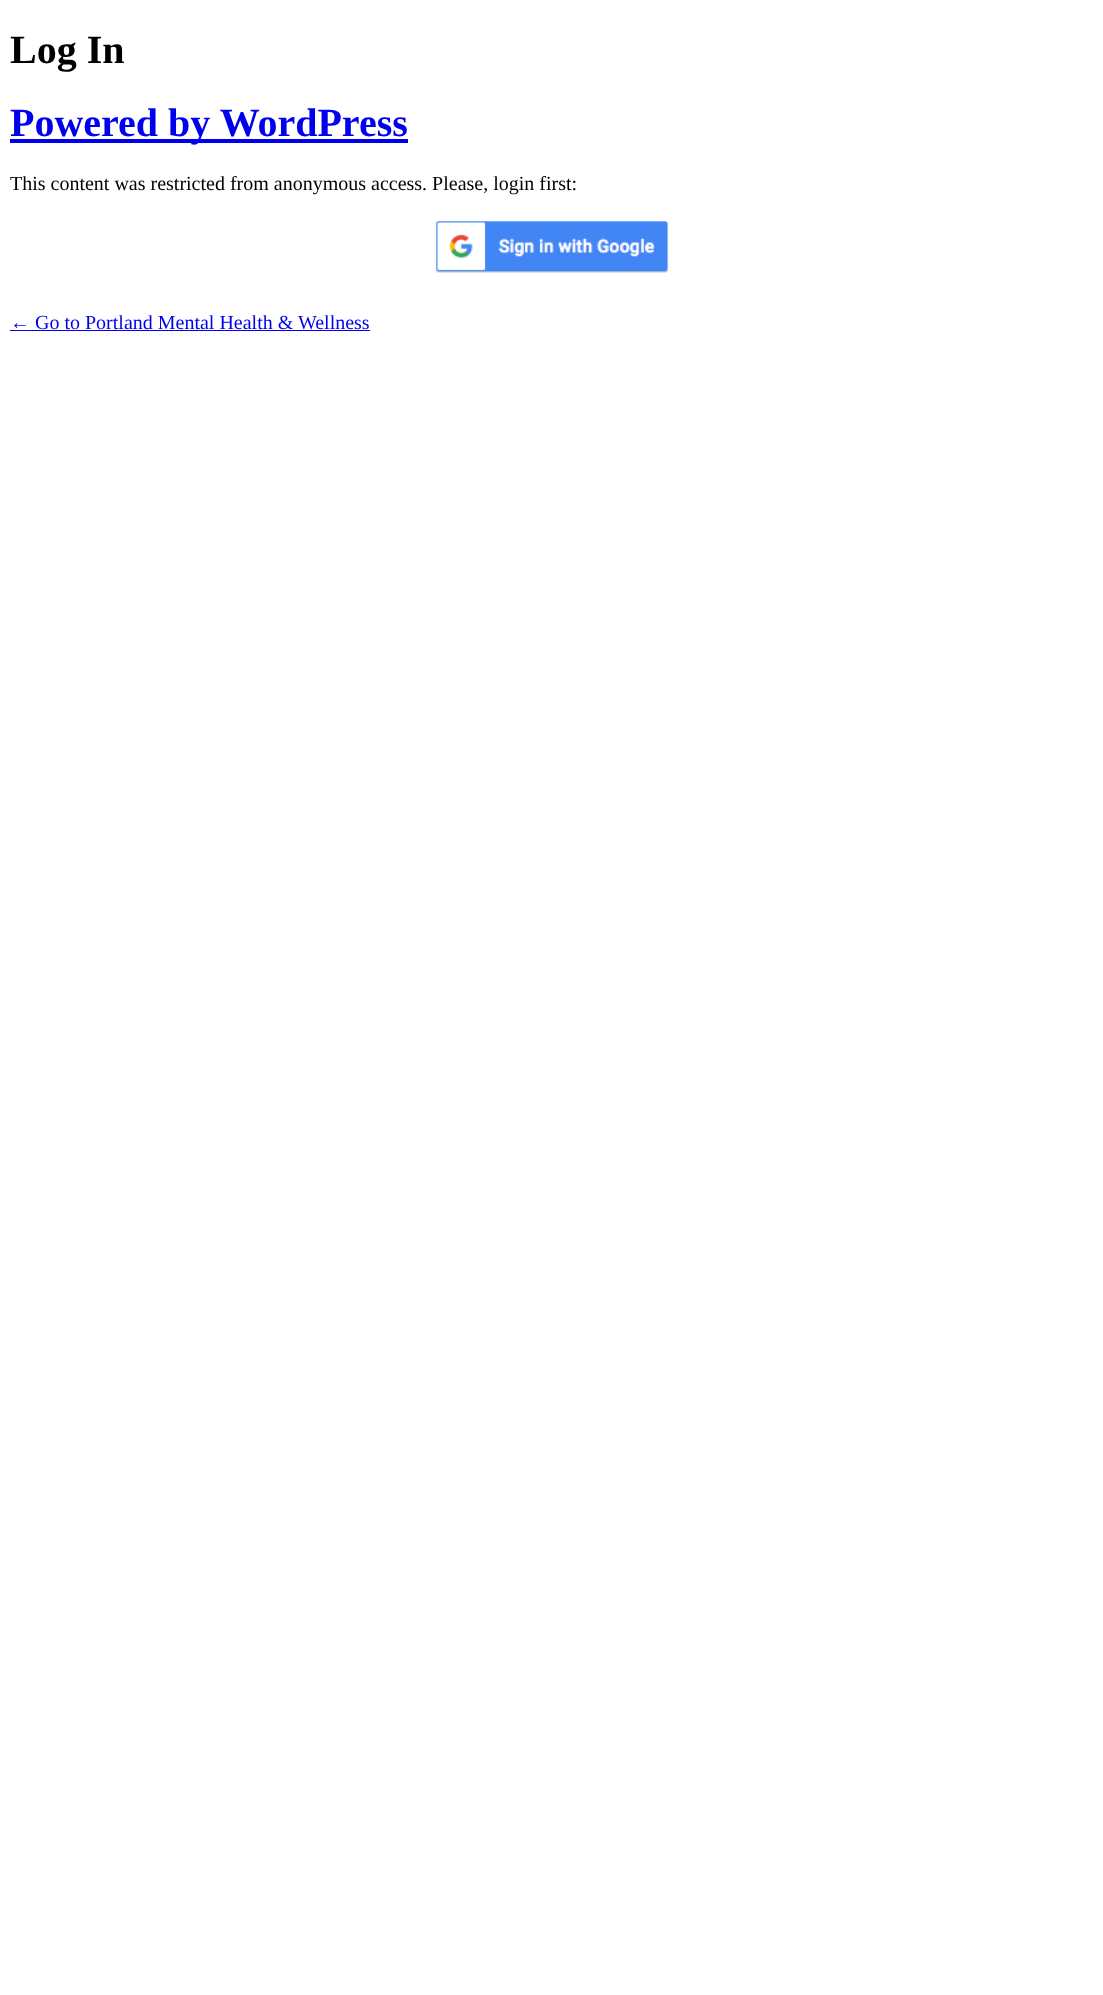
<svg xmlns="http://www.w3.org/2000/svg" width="1103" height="1995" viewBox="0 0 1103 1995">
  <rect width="100%" height="100%" fill="#fff"/>
  <path d="M10 139h398v4H10z" fill="#00e"/>
  <image x="435" y="221" width="234" height="52" href="img/1.png"/>
  <path d="M10 330h360v1H10z" fill="#00e"/>
  <text x="10" y="63" font-family="Liberation Serif" font-size="40" font-weight="bold" fill="#000">Log In</text>
  <text x="10" y="136" font-family="Liberation Serif" font-size="40" font-weight="bold" fill="#00e">Powered by WordPress</text>
  <text x="10" y="190" font-family="Liberation Serif" font-size="20" fill="#000">This content was restricted from anonymous access. Please, login first:</text>
  <text x="10" y="329" font-family="Liberation Serif" font-size="20" fill="#00e">← Go to Portland Mental Health &amp; Wellness</text>
</svg>
